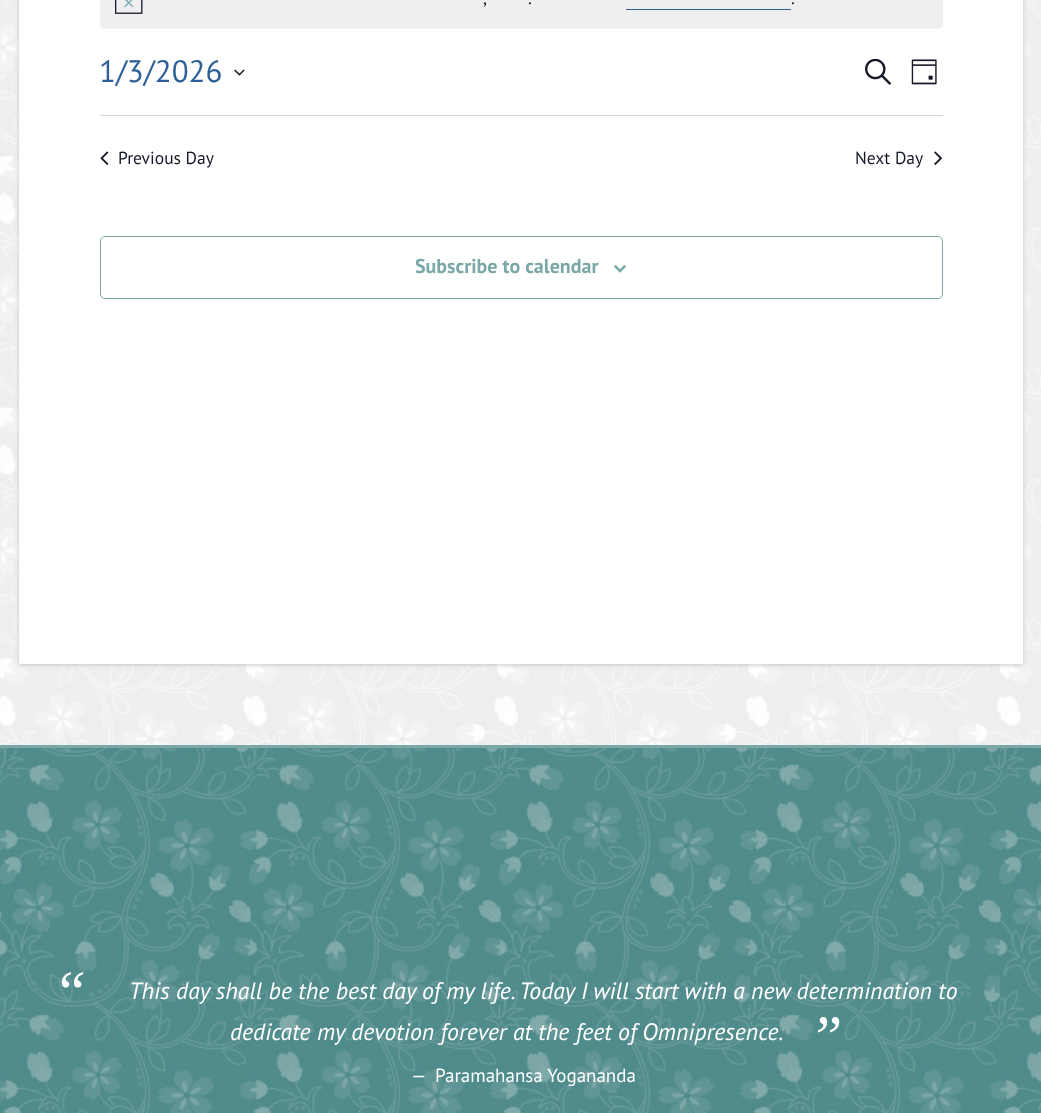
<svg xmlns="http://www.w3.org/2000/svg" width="1041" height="1113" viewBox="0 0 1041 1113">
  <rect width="100%" height="100%" fill="#fff"/>
  <image x="0" y="0" width="1041" height="745" href="img/1.png"/>
  <path d="M19 -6h1004v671H19z" fill="#c7c7c7" filter="blur(2px)"/>
  <path d="M19 0h1004v664H19z" fill="#fff"/>
  <rect x="100" y="-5" width="843" height="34" rx="5" fill="#efeff0"/>
  <image x="115" y="0" width="28" height="14" href="img/2.png"/>
  <path d="M626 9h165v1H626z" fill="#2d6097"/>
  <image x="234" y="69" width="11" height="7" href="img/3.png"/>
  <image x="865" y="59" width="26" height="26" href="img/4.png"/>
  <image x="911" y="59" width="26" height="26" href="img/5.png"/>
  <path d="M100 115h843v1H100z" fill="#d5d5d5"/>
  <image x="100" y="151" width="9" height="14" href="img/6.png"/>
  <image x="934" y="151" width="9" height="14" href="img/7.png"/>
  <rect x="100.5" y="236.5" width="842" height="62" rx="4.5" fill="none" stroke="#7aa7a7"/>
  <image x="614" y="265" width="12" height="8" href="img/8.png"/>
  <image x="0" y="748" width="1041" height="365" href="img/9.png"/>
  <path d="M0 745h1041v3H0z" fill="#7aa7a7"/>
  <g font-family="PT Sans" font-size="17.5" fill="#141827">
    <text x="483" y="4">,</text>
    <text x="528" y="4">.</text>
    <text x="791" y="4">.</text>
  </g>
  <text x="99" y="82" font-family="PT Sans" font-size="31" fill="#2d6097">1/3/2026</text>
  <g font-family="PT Sans" font-size="17.5" fill="#141827">
    <text x="118" y="164">Previous Day</text>
    <text x="855" y="164">Next Day</text>
  </g>
  <text x="415" y="273" font-family="PT Sans" font-size="20" font-weight="bold" fill="#7aa7a7">Subscribe to calendar</text>
  <text x="53" y="1012" font-family="Liberation Serif" font-size="60" font-style="italic" fill="#fff">“</text>
  <g font-family="PT Sans" font-size="23.75" font-style="italic" fill="#fff">
    <text x="129" y="999">This day shall be the best day of my life. Today I will start with a new determination to</text>
    <text x="230" y="1040">dedicate my devotion forever at the feet of Omnipresence.</text>
  </g>
  <text x="809" y="1057" font-family="Liberation Serif" font-size="60" font-style="italic" fill="#fff">”</text>
  <g font-family="PT Sans" font-size="19" fill="#fff">
    <text x="411" y="1082">—</text>
    <text x="435" y="1082">Paramahansa Yogananda</text>
  </g>
</svg>
